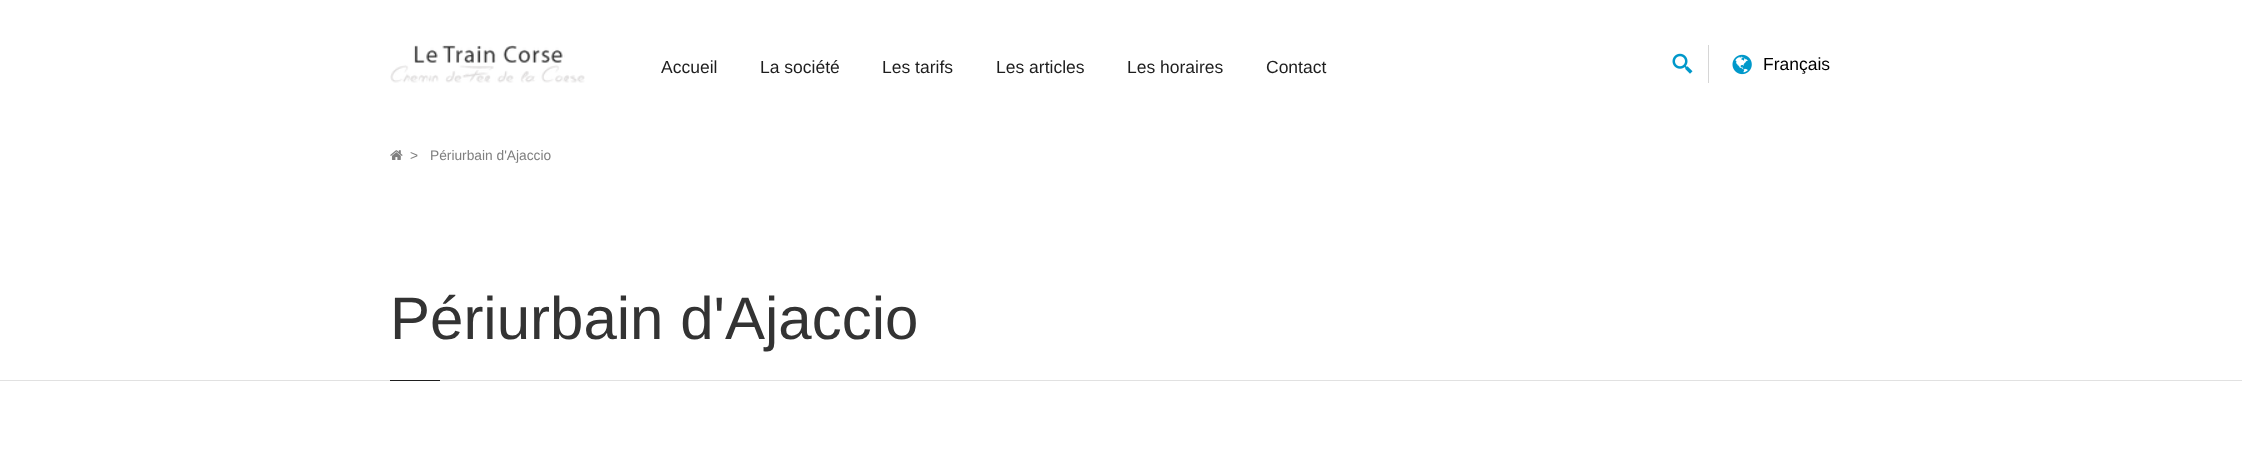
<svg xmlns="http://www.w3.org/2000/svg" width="2242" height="452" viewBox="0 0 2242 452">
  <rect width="100%" height="100%" fill="#fff"/>
  <image x="390" y="45" width="195" height="38" href="img/1.png"/>
  <path d="M1708 45h1v38H1708z" fill="#d6d6d6"/>
  <image x="1672" y="53" width="21" height="21" href="img/2.png"/>
  <image x="1732" y="54" width="20" height="21" href="img/3.png"/>
  <image x="390" y="150" width="13" height="10" href="img/4.png"/>
  <path d="M0 380h2242v1H0z" fill="#e1e1e1"/>
  <path d="M390 380h50v1H390z" fill="#1e1e1e"/>
  <g font-family="Liberation Sans" font-size="17.5" fill="#1e1e1e">
    <text x="661" y="73">Accueil</text>
    <text x="760" y="73">La société</text>
    <text x="882" y="73">Les tarifs</text>
    <text x="996" y="73">Les articles</text>
    <text x="1127" y="73">Les horaires</text>
    <text x="1266" y="73">Contact</text>
  </g>
  <text x="1763" y="70" font-family="Liberation Sans" font-size="17.5" fill="#000">Français</text>
  <g font-family="Liberation Sans" font-size="13.75" fill="#7f7f7f">
    <text x="410" y="160">&gt;</text>
    <text x="430" y="160">Périurbain d'Ajaccio</text>
  </g>
  <text x="390" y="339" font-family="Liberation Sans" font-size="60" fill="#333">Périurbain d'Ajaccio</text>
</svg>
